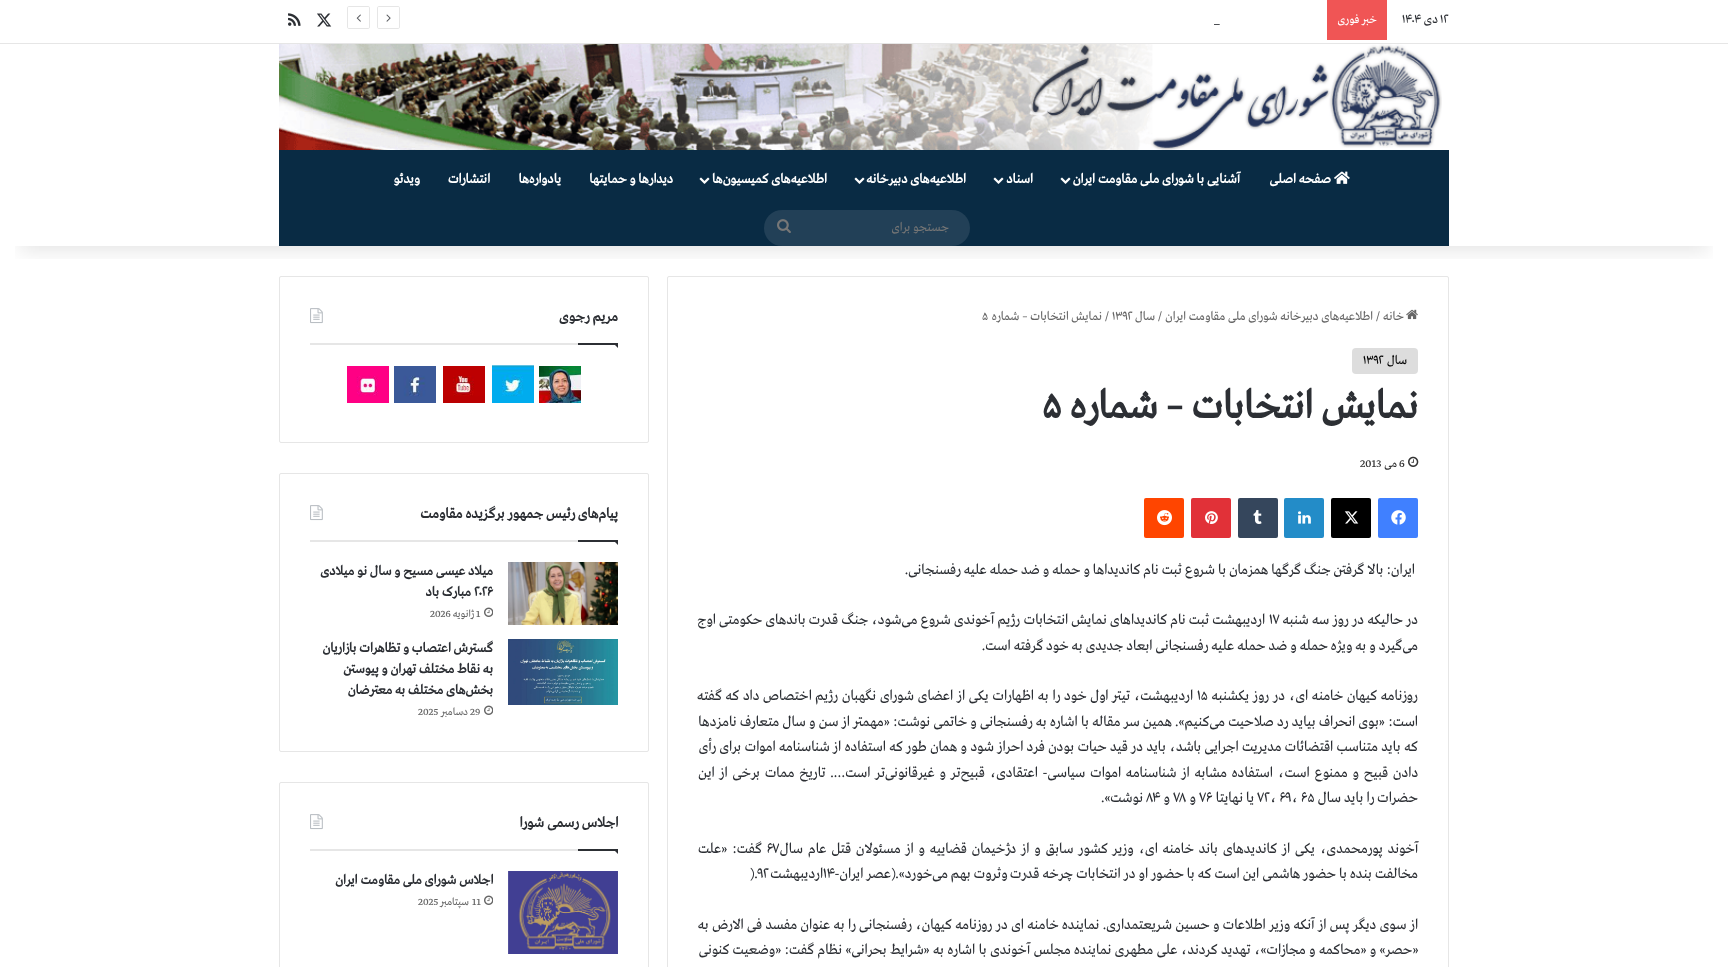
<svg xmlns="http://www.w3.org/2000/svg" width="1728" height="967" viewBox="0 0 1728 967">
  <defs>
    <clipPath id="clip1"><path d="M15 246h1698v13H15z"/></clipPath>
  </defs>
  <rect width="100%" height="100%" fill="#fff"/>
  <rect x="667.5" y="276.5" width="781" height="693" rx="1.5" fill="none" stroke="#e6e6e6"/>
  <rect x="279.5" y="276.5" width="369" height="166" rx="1.5" fill="none" stroke="#e6e6e6"/>
  <g clip-path="url(#clip1)">
    <path d="M20 45h1688v206H20z" fill="#0000001a" filter="blur(10px)"/>
  </g>
  <path d="M0 43h1728v1H0z" fill="#e6e6e6"/>
  <path d="M1327 0h60v40H1327z" fill="#f05555"/>
  <path d="M398 28.5H379C378 28.5 377.5 28 377.5 27V8C377.5 7 378 6.5 379 6.5H398C399 6.5 399.5 7 399.5 8V27C399.5 28 399 28.5 398 28.5Z" fill="none" stroke="#e6e6e6"/>
  <image x="386" y="14" width="5" height="8" href="img/1.png"/>
  <path d="M368 28.5H349C348 28.5 347.5 28 347.5 27V8C347.5 7 348 6.5 349 6.5H368C369 6.5 369.5 7 369.5 8V27C369.5 28 369 28.5 368 28.5Z" fill="none" stroke="#e6e6e6"/>
  <image x="356" y="14" width="5" height="8" href="img/2.png"/>
  <image x="317" y="13" width="15" height="14" href="img/3.png"/>
  <image x="288" y="13" width="13" height="13" href="img/4.png"/>
  <image x="279" y="44" width="1163" height="106" href="img/5.png"/>
  <path d="M279 150h1170v96H279z" fill="#092b44"/>
  <image x="1334" y="171" width="16" height="13" href="img/6.png"/>
  <image x="1060" y="177" width="11" height="7" href="img/7.png"/>
  <image x="993" y="177" width="11" height="7" href="img/7.png"/>
  <image x="854" y="177" width="11" height="7" href="img/7.png"/>
  <image x="699" y="177" width="11" height="7" href="img/7.png"/>
  <rect x="764" y="210" width="206" height="36" rx="18" fill="#224057"/>
  <image x="777" y="219" width="14" height="14" href="img/8.png"/>
  <image x="1406" y="309" width="12" height="11" href="img/9.png"/>
  <rect x="1352" y="348" width="66" height="26" rx="4" fill="#ddd"/>
  <image x="1408" y="456" width="11" height="11" href="img/10.png"/>
  <rect x="1378" y="498" width="40" height="40" rx="2" fill="#4080ff"/>
  <image x="1391" y="510" width="15" height="15" href="img/11.png"/>
  <rect x="1331" y="498" width="40" height="40" rx="2" fill="#000"/>
  <image x="1344" y="511" width="15" height="13" href="img/12.png"/>
  <rect x="1284" y="498" width="40" height="40" rx="2" fill="#238cc8"/>
  <image x="1298" y="511" width="13" height="13" href="img/13.png"/>
  <rect x="1238" y="498" width="40" height="40" rx="2" fill="#35465c"/>
  <image x="1253" y="510" width="9" height="14" href="img/14.png"/>
  <rect x="1191" y="498" width="40" height="40" rx="2" fill="#e13138"/>
  <image x="1205" y="511" width="13" height="13" href="img/15.png"/>
  <rect x="1144" y="498" width="40" height="40" rx="2" fill="#ff4500"/>
  <image x="1157" y="510" width="15" height="16" href="img/16.png"/>
  <path d="M310 343h268v2H310z" fill="#e6e6e6"/>
  <image x="310" y="308" width="13" height="16" href="img/17.png"/>
  <path d="M613 343H618V348Z" fill="#2c2f34"/>
  <path d="M578 343h40v2H578z" fill="#2c2f34"/>
  <image x="539" y="366" width="42" height="37" href="img/18.png"/>
  <image x="492" y="365" width="42" height="38" href="img/19.png"/>
  <image x="443" y="366" width="42" height="37" href="img/20.png"/>
  <image x="394" y="366" width="42" height="37" href="img/21.png"/>
  <image x="347" y="366" width="42" height="37" href="img/22.png"/>
  <rect x="279.5" y="473.5" width="369" height="278" rx="1.5" fill="none" stroke="#e6e6e6"/>
  <path d="M310 540h268v2H310z" fill="#e6e6e6"/>
  <image x="310" y="505" width="13" height="16" href="img/17.png"/>
  <path d="M613 540H618V545Z" fill="#2c2f34"/>
  <path d="M578 540h40v2H578z" fill="#2c2f34"/>
  <image x="508" y="562" width="110" height="63" href="img/23.png"/>
  <image x="484" y="607" width="9" height="10" href="img/24.png"/>
  <image x="508" y="639" width="110" height="66" href="img/25.png"/>
  <image x="484" y="705" width="9" height="10" href="img/24.png"/>
  <rect x="279.5" y="782.5" width="369" height="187" rx="1.5" fill="none" stroke="#e6e6e6"/>
  <path d="M310 849h268v2H310z" fill="#e6e6e6"/>
  <image x="310" y="814" width="13" height="16" href="img/17.png"/>
  <path d="M613 849H618V854Z" fill="#2c2f34"/>
  <path d="M578 849h40v2H578z" fill="#2c2f34"/>
  <image x="508" y="871" width="110" height="83" href="img/26.png"/>
  <image x="484" y="895" width="9" height="10" href="img/24.png"/>
  <text x="1440" y="23" font-family="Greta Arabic" font-size="13" fill="#2c2f34">۱۲</text>
  <text x="1438" y="23" font-family="Greta Arabic" font-size="13" direction="rtl" fill="#2c2f34">دی</text>
  <text x="1402" y="23" font-family="Greta Arabic" font-size="13" fill="#2c2f34">۱۴۰۴</text>
  <text x="1377" y="23" font-family="Greta Arabic" font-size="12" direction="rtl" fill="#fff">خبر فوری</text>
  <text x="1214" y="23" font-family="Greta Arabic" font-size="13" fill="#2c2f34">_</text>
  <g font-family="Greta Arabic" font-size="14" font-weight="bold" direction="rtl" fill="#fff">
    <text x="1331" y="183">صفحه اصلی</text>
    <text x="1240" y="183">آشنایی با شورای ملی مقاومت ایران</text>
    <text x="1033" y="183">اسناد</text>
    <text x="966" y="183">اطلاعیه‌های دبیرخانه</text>
    <text x="827" y="183">اطلاعیه‌های کمیسیون‌‌ها</text>
    <text x="673" y="183">دیدارها و حمایتها</text>
    <text x="561" y="183">یادواره‌ها</text>
    <text x="490" y="183">انتشارات</text>
    <text x="420" y="183">ویدئو</text>
  </g>
  <text x="949" y="231" font-family="Greta Arabic" font-size="13" direction="rtl" fill="#757575">جستجو برای</text>
  <text x="1404" y="320" font-family="Greta Arabic" font-size="13" direction="rtl" fill="#666">خانه</text>
  <text x="1376" y="320" font-family="Greta Arabic" font-size="13" fill="#666">/</text>
  <text x="1373" y="320" font-family="Greta Arabic" font-size="13" direction="rtl" fill="#666">اطلاعیه‌های دبیرخانه شورای ملی مقاومت ایران</text>
  <text x="1158" y="320" font-family="Greta Arabic" font-size="13" fill="#666">/</text>
  <text x="1155" y="320" font-family="Greta Arabic" font-size="13" direction="rtl" fill="#666">سال</text>
  <g font-family="Greta Arabic" font-size="13" fill="#666">
    <text x="1112" y="320">۱۳۹۲</text>
    <text x="1105" y="320">/</text>
  </g>
  <text x="1102" y="320" font-family="Greta Arabic" font-size="13" direction="rtl" fill="#666">نمایش انتخابات – شماره</text>
  <text x="982" y="320" font-family="Greta Arabic" font-size="13" fill="#666">۵</text>
  <text x="1407" y="364" font-family="Greta Arabic" font-size="13" direction="rtl" fill="#000">سال</text>
  <text x="1363" y="364" font-family="Greta Arabic" font-size="13" fill="#000">۱۳۹۲</text>
  <text x="1418" y="418" font-family="Greta Arabic" font-size="41" font-weight="bold" direction="rtl" fill="#2c2f34">نمایش انتخابات – شماره</text>
  <text x="1042" y="418" font-family="Greta Arabic" font-size="41" font-weight="bold" fill="#2c2f34">۵</text>
  <text x="1399" y="467" font-family="Greta Arabic" font-size="12" fill="#333">6</text>
  <text x="1397" y="467" font-family="Greta Arabic" font-size="12" direction="rtl" fill="#333">می</text>
  <text x="1360" y="467" font-family="Greta Arabic" font-size="12" fill="#333">2013</text>
  <g font-family="Greta Arabic" font-size="15" direction="rtl" fill="#2c2f34">
    <text x="1415" y="574">ایران: بالا گرفتن جنگ گرگها همزمان با شروع ثبت نام کاندیداها و حمله و ضد حمله علیه رفسنجانی.</text>
    <text x="1418" y="624" word-spacing="0.25">در حالیکه در روز سه شنبه</text>
  </g>
  <text x="1269" y="624" font-family="Greta Arabic" font-size="15" fill="#2c2f34">۱۷</text>
  <g font-family="Greta Arabic" font-size="15" direction="rtl" fill="#2c2f34">
    <text x="1265" y="624" word-spacing="0.25">اردیبهشت ثبت نام کاندیداهای نمایش انتخابات رژیم آخوندی شروع می‌شود، جنگ قدرت باندهای حکومتی اوج</text>
    <text x="1418" y="650">می‌گیرد و به ویژه حمله و ضد حمله علیه رفسنجانی ابعاد جدیدی به خود گرفته است.</text>
    <text x="1418" y="700" word-spacing="0.75">روزنامه کیهان خامنه ای، در روز یکشنبه</text>
  </g>
  <text x="1197" y="700" font-family="Greta Arabic" font-size="15" fill="#2c2f34">۱۵</text>
  <g font-family="Greta Arabic" font-size="15" direction="rtl" fill="#2c2f34">
    <text x="1193" y="700" word-spacing="0.75">اردیبهشت، تیتر اول خود را به اظهارات یکی از اعضای شورای نگهبان رژیم اختصاص داد که گفته</text>
    <text x="1418" y="726" word-spacing="0.2">است: «بوی انحراف بیاید رد صلاحیت می‌کنیم». همین سر مقاله با اشاره به رفسنجانی و خاتمی نوشت: «مهمتر از سن و سال متعارف نامزدها</text>
    <text x="1418" y="751" word-spacing="0.4">که باید متناسب اقتضائات مدیریت اجرایی باشد، باید در قید حیات بودن فرد احراز شود و همان طور که استفاده از شناسنامه اموات برای رأی</text>
    <text x="1418" y="777" word-spacing="1.8">دادن قبیح و ممنوع است، استفاده مشابه از شناسنامه اموات سیاسی- اعتقادی، قبیح‌تر و غیرقانونی‌تر است…. تاریخ ممات برخی از این</text>
    <text x="1418" y="802">حضرات را باید سال</text>
  </g>
  <text x="1257" y="802" font-family="Greta Arabic" font-size="15" fill="#2c2f34">۷۲، ۶۹، ۶۵</text>
  <text x="1254" y="802" font-family="Greta Arabic" font-size="15" direction="rtl" fill="#2c2f34">یا نهایتا</text>
  <text x="1199" y="802" font-family="Greta Arabic" font-size="15" fill="#2c2f34">۷۶</text>
  <text x="1196" y="802" font-family="Greta Arabic" font-size="15" direction="rtl" fill="#2c2f34">و</text>
  <text x="1173" y="802" font-family="Greta Arabic" font-size="15" fill="#2c2f34">۷۸</text>
  <text x="1170" y="802" font-family="Greta Arabic" font-size="15" direction="rtl" fill="#2c2f34">و</text>
  <text x="1146" y="802" font-family="Greta Arabic" font-size="15" fill="#2c2f34">۸۴</text>
  <g font-family="Greta Arabic" font-size="15" direction="rtl" fill="#2c2f34">
    <text x="1143" y="802">نوشت».</text>
    <text x="1418" y="853" word-spacing="1.9">آخوند پورمحمدی، یکی از کاندیدهای باند خامنه ای، وزیر کشور سابق و از دژخیمان قضاییه و از مسئولان قتل عام سال</text>
  </g>
  <text x="767" y="853" font-family="Greta Arabic" font-size="15" fill="#2c2f34">۶۷</text>
  <g font-family="Greta Arabic" font-size="15" direction="rtl" fill="#2c2f34">
    <text x="762" y="853" word-spacing="1.9">گفت: «علت</text>
    <text x="1418" y="878">مخالفت بنده با حضور هاشمی این است که با حضور او در انتخابات چرخه قدرت وثروت بهم می‌خورد».(عصر ایران-</text>
  </g>
  <text x="823" y="878" font-family="Greta Arabic" font-size="15" fill="#2c2f34">۱۴</text>
  <text x="823" y="878" font-family="Greta Arabic" font-size="15" direction="rtl" fill="#2c2f34">اردیبهشت</text>
  <text x="750" y="878" font-family="Greta Arabic" font-size="15" fill="#2c2f34">).۹۲</text>
  <g font-family="Greta Arabic" font-size="15" direction="rtl" fill="#2c2f34">
    <text x="1418" y="929" word-spacing="0.4">از سوی دیگر پس از آنکه وزیر اطلاعات و حسین شریعتمداری. نماینده خامنه ای در روزنامه کیهان، رفسنجانی را به عنوان مفسد فی الارض به</text>
    <text x="1418" y="954" word-spacing="0.4">«حصر» و «محاکمه و مجازات»، تهدید کردند، علی مطهری نماینده مجلس آخوندی با اشاره به «شرایط بحرانی» نظام گفت: «وضعیت کنونی</text>
  </g>
  <g font-family="Greta Arabic" font-size="15" font-weight="bold" direction="rtl" fill="#2c2f34">
    <text x="618" y="321">مریم رجوی</text>
    <text x="618" y="518">پیام‌های رئیس جمهور برگزیده مقاومت</text>
  </g>
  <text x="493" y="575" font-family="Greta Arabic" font-size="14" font-weight="bold" direction="rtl" fill="#2c2f34">میلاد عیسی مسیح و سال نو میلادی</text>
  <text x="474" y="596" font-family="Greta Arabic" font-size="14" font-weight="bold" fill="#2c2f34">۲۰۲۶</text>
  <text x="471" y="596" font-family="Greta Arabic" font-size="14" font-weight="bold" direction="rtl" fill="#2c2f34">مبارک باد</text>
  <text x="476" y="617" font-family="Greta Arabic" font-size="11" fill="#666">1</text>
  <text x="474" y="617" font-family="Greta Arabic" font-size="11" direction="rtl" fill="#666">ژانویه</text>
  <text x="430" y="617" font-family="Greta Arabic" font-size="11" fill="#666">2026</text>
  <g font-family="Greta Arabic" font-size="14" font-weight="bold" direction="rtl" fill="#2c2f34">
    <text x="493" y="652">گسترش اعتصاب و تظاهرات بازاریان</text>
    <text x="493" y="673">به نقاط مختلف تهران و پیوستن</text>
    <text x="493" y="694">بخش‌های مختلف به معترضان</text>
  </g>
  <text x="470" y="715" font-family="Greta Arabic" font-size="11" fill="#666">29</text>
  <text x="468" y="715" font-family="Greta Arabic" font-size="11" direction="rtl" fill="#666">دسامبر</text>
  <text x="418" y="715" font-family="Greta Arabic" font-size="11" fill="#666">2025</text>
  <text x="618" y="827" font-family="Greta Arabic" font-size="15" font-weight="bold" direction="rtl" fill="#2c2f34">اجلاس رسمی شورا</text>
  <text x="493" y="884" font-family="Greta Arabic" font-size="14" font-weight="bold" direction="rtl" fill="#2c2f34">اجلاس شورای ملی مقاومت ایران</text>
  <text x="472" y="905" font-family="Greta Arabic" font-size="11" fill="#666">11</text>
  <text x="469" y="905" font-family="Greta Arabic" font-size="11" direction="rtl" fill="#666">سپتامبر</text>
  <text x="418" y="905" font-family="Greta Arabic" font-size="11" fill="#666">2025</text>
</svg>
